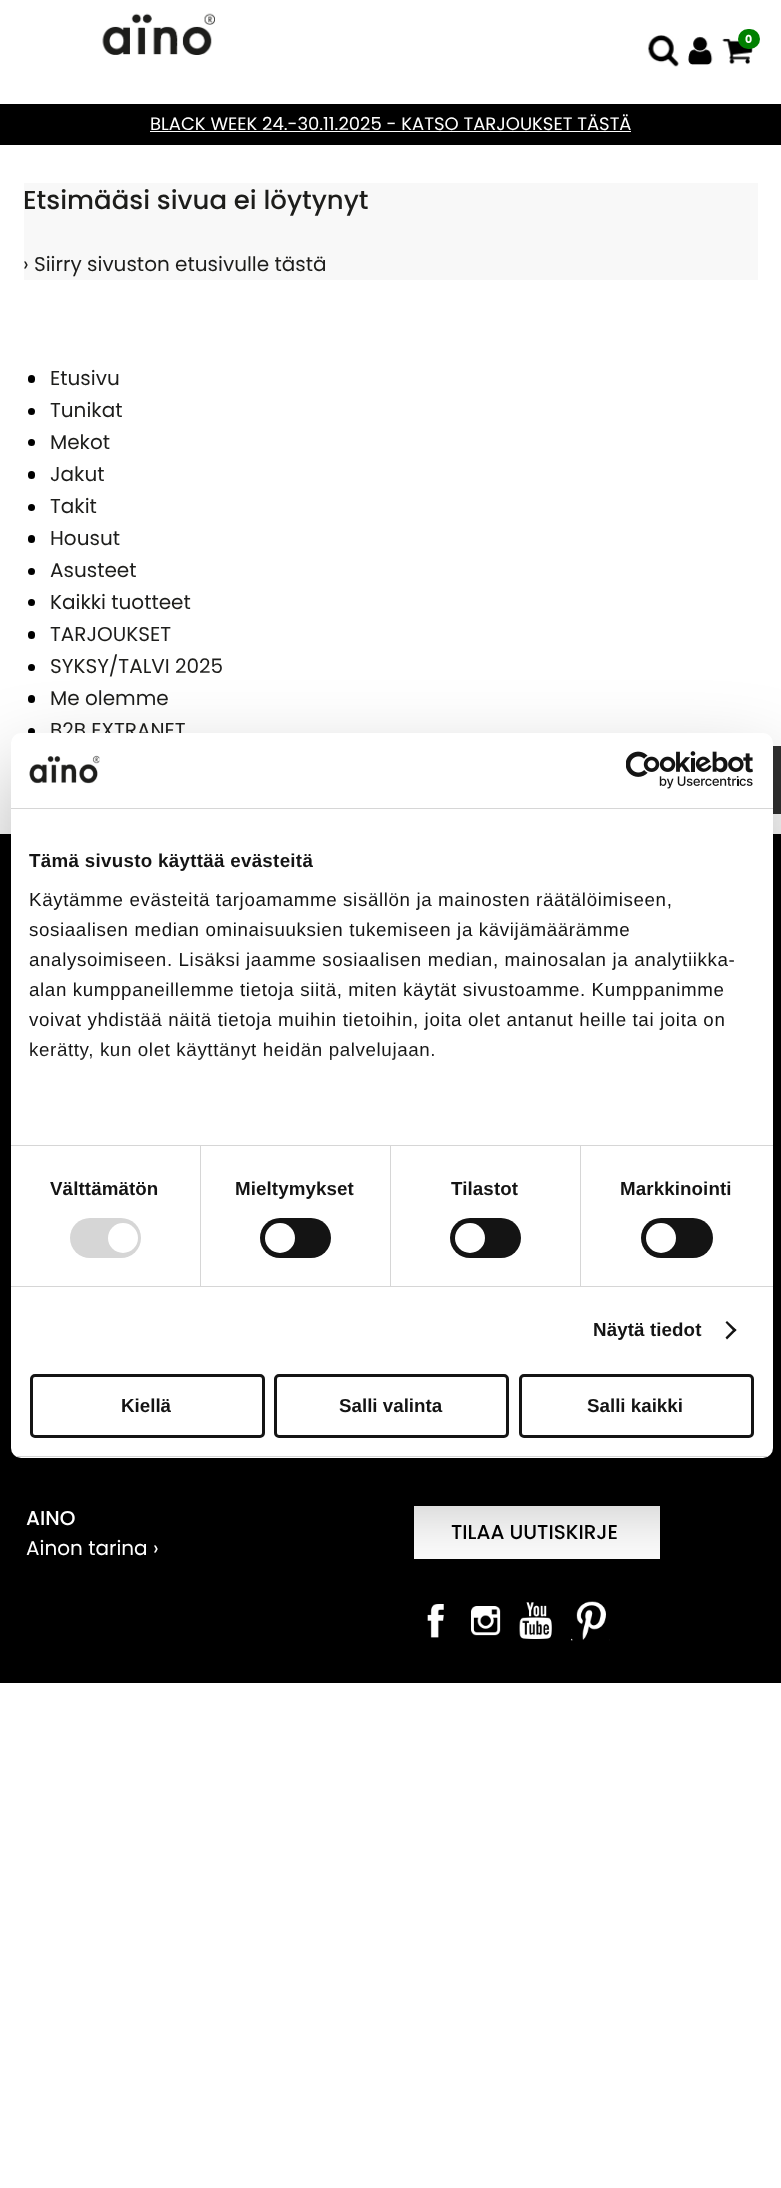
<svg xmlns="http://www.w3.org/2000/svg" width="781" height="2188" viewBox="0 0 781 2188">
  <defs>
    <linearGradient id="g1" gradientUnits="userSpaceOnUse" x1="383" y1="1145" x2="383" y2="1051"><stop offset="0" stop-color="#fff"/><stop offset="0.5" stop-color="#fff" stop-opacity="0.8"/><stop offset="1" stop-color="#fff" stop-opacity="0"/></linearGradient>
    <clipPath id="clip1"><rect x="11" y="733" width="762" height="725" rx="10"/></clipPath>
  </defs>
  <rect width="100%" height="100%" fill="#fff"/>
  <image x="102" y="13" width="113" height="42" href="img/1.png"/>
  <image x="647" y="35" width="32" height="32" href="img/2.png"/>
  <image x="688" y="36" width="25" height="29" href="img/3.png"/>
  <image x="722" y="38" width="31" height="27" href="img/4.png"/>
  <rect x="738" y="29" width="22" height="20" rx="10" fill="#008000"/>
  <path d="M0 104h781v41H0z" fill="#000"/>
  <path d="M150 131h481v1H150z" fill="#fff"/>
  <path d="M24 183h734v97H24z" fill="#f8f8f8"/>
  <rect x="28" y="375" width="7" height="8" rx="3.5" fill="#000"/>
  <circle cx="31.5" cy="411.5" r="3.5" fill="#000"/>
  <circle cx="31.5" cy="442.5" r="3.5" fill="#000"/>
  <rect x="28" y="471" width="7" height="8" rx="3.5" fill="#000"/>
  <circle cx="31.5" cy="507.5" r="3.5" fill="#000"/>
  <rect x="28" y="535" width="7" height="8" rx="3.5" fill="#000"/>
  <circle cx="31.5" cy="571.5" r="3.5" fill="#000"/>
  <circle cx="31.5" cy="602.5" r="3.5" fill="#000"/>
  <rect x="28" y="631" width="7" height="8" rx="3.5" fill="#000"/>
  <circle cx="31.5" cy="667.5" r="3.5" fill="#000"/>
  <rect x="28" y="695" width="7" height="8" rx="3.5" fill="#000"/>
  <circle cx="31.5" cy="731.5" r="3.5" fill="#000"/>
  <path d="M773 746h8v68H773z" fill="#303030"/>
  <path d="M0 834h781v849H0z" fill="#000"/>
  <path d="M414 1506h246v53H414z" fill="#fff"/>
  <image x="427" y="1604" width="17" height="34" href="img/7.png"/>
  <image x="471" y="1606" width="30" height="30" href="img/8.png"/>
  <image x="519" y="1602" width="33" height="37" href="img/9.png"/>
  <image x="571" y="1601" width="39" height="40" href="img/10.png"/>
  <rect x="11" y="773" width="762" height="725" rx="10" fill="#0000004d" filter="blur(42.5px)"/>
  <text x="745" y="43" font-family="Poppins" font-size="11" font-weight="bold" fill="#fff">0</text>
  <text x="150" y="130" font-family="Poppins" font-size="18" fill="#fff">BLACK WEEK 24.-30.11.2025 - KATSO TARJOUKSET TÄSTÄ</text>
  <text x="23" y="209" font-family="Poppins" font-size="26" font-weight="500" fill="#1d1d1b">Etsimääsi sivua ei löytynyt</text>
  <g font-family="Poppins" font-size="20" fill="#1d1d1b">
    <text x="23" y="271">› Siirry sivuston etusivulle tästä</text>
    <text x="50" y="385">Etusivu</text>
    <text x="50" y="417">Tunikat</text>
    <text x="50" y="449">Mekot</text>
    <text x="50" y="481">Jakut</text>
    <text x="50" y="513">Takit</text>
    <text x="50" y="545">Housut</text>
    <text x="50" y="577">Asusteet</text>
    <text x="50" y="609">Kaikki tuotteet</text>
    <text x="50" y="641">TARJOUKSET</text>
    <text x="50" y="673">SYKSY/TALVI 2025</text>
    <text x="50" y="705">Me olemme</text>
    <text x="50" y="737">B2B EXTRANET</text>
  </g>
  <rect x="11" y="733" width="762" height="725" rx="10" fill="#fff"/>
  <path d="M11 808h762v1H11z" fill="#d6d6d6"/>
  <image x="29" y="755" width="71" height="29" href="img/5.png"/>
  <image x="626" y="751" width="127" height="38" href="img/6.png"/>
  <path d="M11 1145h762v1H11z" fill="#d6d6d6"/>
  <text x="29" y="867" font-family="Liberation Sans" font-size="18.75" font-weight="bold" letter-spacing="0.3" fill="#141414">Tämä sivusto käyttää evästeitä</text>
  <g font-family="Liberation Sans" font-size="18.75" letter-spacing="0.62" fill="#141414">
    <text x="29" y="906">Käytämme evästeitä tarjoamamme sisällön ja mainosten räätälöimiseen,</text>
    <text x="29" y="936">sosiaalisen median ominaisuuksien tukemiseen ja kävijämäärämme</text>
    <text x="29" y="966">analysoimiseen. Lisäksi jaamme sosiaalisen median, mainosalan ja analytiikka-</text>
    <text x="29" y="996">alan kumppaneillemme tietoja siitä, miten käytät sivustoamme. Kumppanimme</text>
    <text x="29" y="1026">voivat yhdistää näitä tietoja muihin tietoihin, joita olet antanut heille tai joita on</text>
    <text x="29" y="1056">kerätty, kun olet käyttänyt heidän palvelujaan.</text>
  </g>
  <path d="M30 1052h404v8H30z" fill="url(#g1)"/>
  <path d="M11 1286h762v1H11z" fill="#d6d6d6"/>
  <path d="M200 1146h1v140H200z" fill="#d6d6d6"/>
  <text x="50" y="1195" font-family="Liberation Sans" font-size="18.75" font-weight="bold" letter-spacing="0.1" fill="#141414">Välttämätön</text>
  <rect x="70" y="1218" width="71" height="40" rx="20" fill="#d6d6d6"/>
  <circle cx="123" cy="1238" r="15" fill="#fff"/>
  <path d="M390 1146h1v140H390z" fill="#d6d6d6"/>
  <text x="235" y="1195" font-family="Liberation Sans" font-size="18.75" font-weight="bold" letter-spacing="0.1" fill="#141414">Mieltymykset</text>
  <rect x="260" y="1218" width="71" height="40" rx="20" fill="#141414"/>
  <circle cx="280" cy="1238" r="15" fill="#fff"/>
  <path d="M580 1146h1v140H580z" fill="#d6d6d6"/>
  <text x="451" y="1195" font-family="Liberation Sans" font-size="18.75" font-weight="bold" letter-spacing="0.1" fill="#141414">Tilastot</text>
  <rect x="450" y="1218" width="71" height="40" rx="20" fill="#141414"/>
  <circle cx="470" cy="1238" r="15" fill="#fff"/>
  <text x="620" y="1195" font-family="Liberation Sans" font-size="18.75" font-weight="bold" letter-spacing="0.1" fill="#141414">Markkinointi</text>
  <rect x="641" y="1218" width="72" height="40" rx="20" fill="#141414"/>
  <circle cx="661" cy="1238" r="15" fill="#fff"/>
  <text x="593" y="1336" font-family="Liberation Sans" font-size="18.75" font-weight="bold" letter-spacing="0.1" fill="#141414">Näytä tiedot</text>
  <path d="M727 1321L736.5 1330L734.5 1332L725.5 1322.5Z" fill="#141414"/>
  <path d="M734.5 1328.5L736.5 1330L727 1339.5L725.5 1337.5Z" fill="#141414"/>
  <g clip-path="url(#clip1)">
    <path d="M11 1456h762v1H11z" fill="#d6d6d6"/>
  </g>
  <rect x="31.5" y="1375.5" width="232" height="61" rx="3.5" fill="none" stroke="#141414" stroke-width="3"/>
  <text x="121" y="1412" font-family="Liberation Sans" font-size="18.75" font-weight="bold" fill="#141414">Kiellä</text>
  <rect x="275.5" y="1375.5" width="232" height="61" rx="3.5" fill="none" stroke="#141414" stroke-width="3"/>
  <text x="339" y="1412" font-family="Liberation Sans" font-size="18.75" font-weight="bold" fill="#141414">Salli valinta</text>
  <rect x="520.5" y="1375.5" width="232" height="61" rx="3.5" fill="none" stroke="#141414" stroke-width="3"/>
  <text x="587" y="1412" font-family="Liberation Sans" font-size="18.75" font-weight="bold" fill="#141414">Salli kaikki</text>
  <text x="26" y="1525" font-family="Poppins" font-size="20" font-weight="500" fill="#fff">AINO</text>
  <text x="26" y="1555" font-family="Poppins" font-size="20" fill="#fff">Ainon tarina ›</text>
  <text x="451" y="1539" font-family="Poppins" font-size="20" font-weight="500" fill="#000">TILAA UUTISKIRJE</text>
</svg>
